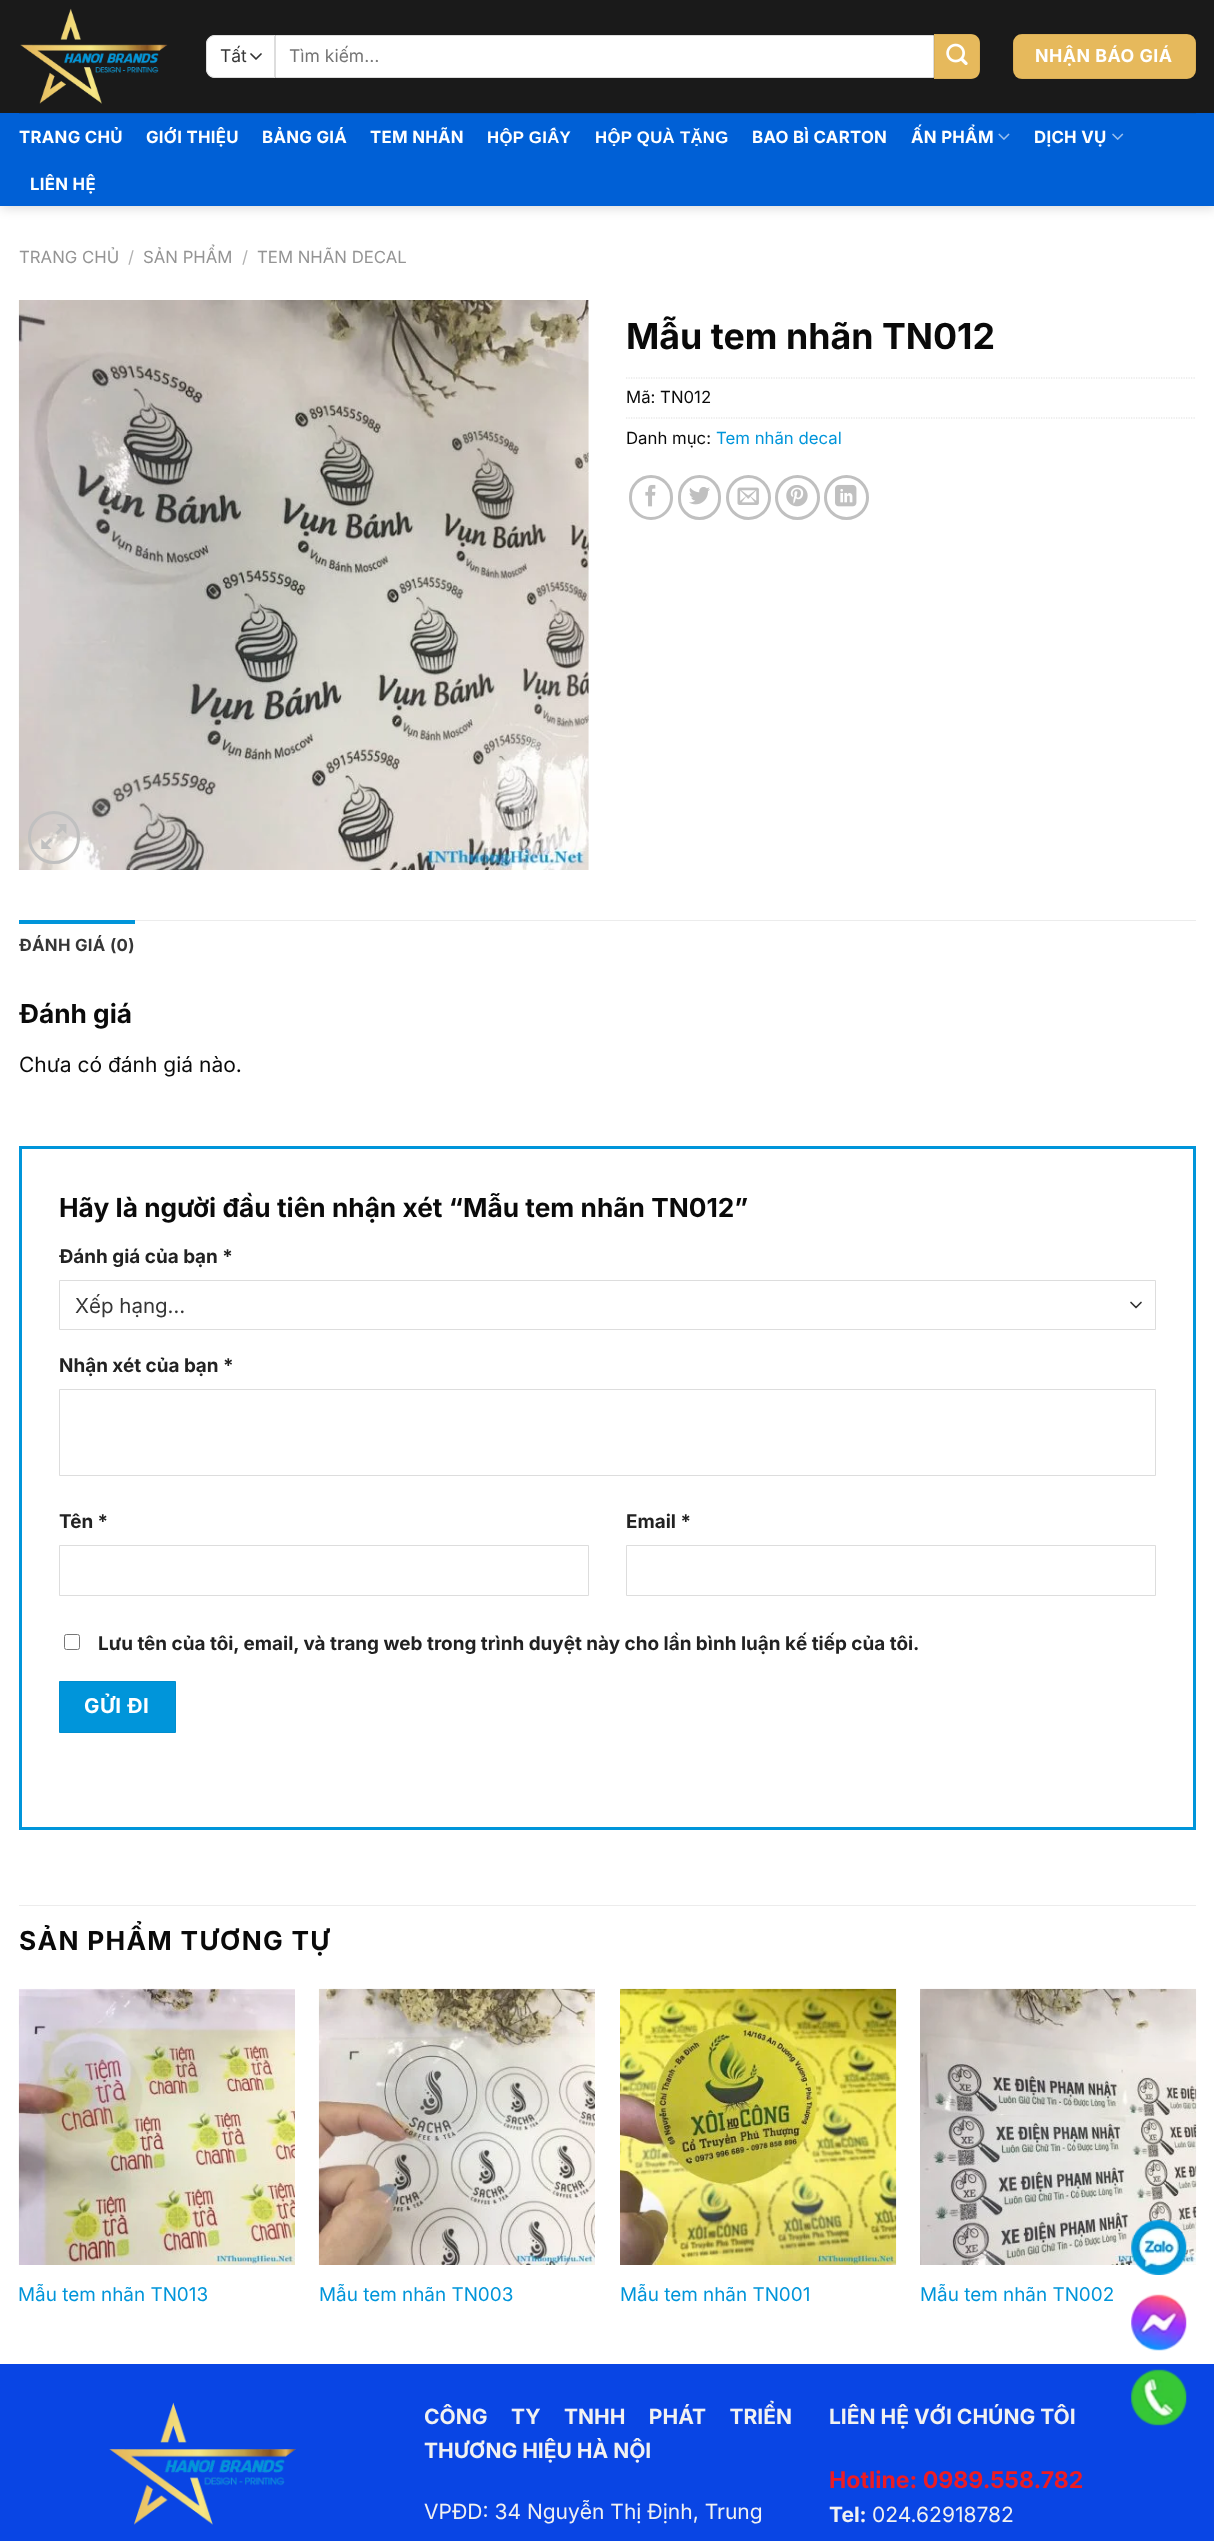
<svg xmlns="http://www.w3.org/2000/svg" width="1214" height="2541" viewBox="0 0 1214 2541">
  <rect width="100%" height="100%" fill="#fff"/>
  <path d="M1 1h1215v207H1z" fill="#00000026" filter="blur(6px)"/>
  <path d="M0 0h1214v113H0z" fill="#1a1a1a"/>
  <image x="20" y="8" width="148" height="96" href="img/1.png"/>
  <path d="M215 35H275V78H215C210 78 206 74 206 69V44C206 39 210 35 215 35Z" fill="#fff"/>
  <path d="M251 54L256 59L261 54" fill="none" stroke="#333" stroke-width="1.7" stroke-linecap="round" stroke-linejoin="round"/>
  <path d="M215 35.5H274.5V77.5H215C210.5 77.5 206.5 73.5 206.5 69V44C206.5 39.5 210.5 35.5 215 35.5Z" fill="none" stroke="#ddd"/>
  <path d="M275.5 35.5h658v42H275.5z" fill="#fff" stroke="#ddd"/>
  <path d="M934 34H971C976 34 980 38 980 43V70C980 75 976 79 971 79H934Z" fill="#e6b95c"/>
  <path d="M934.5 34.5h45v44H934.5z" fill="none" stroke="#0000000d"/>
  <image x="946" y="43" width="22" height="22" href="img/2.png"/>
  <rect x="1013" y="34" width="183" height="45" rx="9" fill="#e6b95c"/>
  <path d="M1013.5 34.5h182v44H1013.5z" fill="none" stroke="#0000000d"/>
  <path d="M0 113h1214v93H0z" fill="#0060d6"/>
  <path d="M19 113h1177v1H19z" fill="#0157c2"/>
  <image x="998" y="133" width="12" height="7" href="img/3.png"/>
  <image x="1112" y="133" width="12" height="7" href="img/4.png"/>
  <image x="18" y="300" width="571" height="570" href="img/5.png"/>
  <rect x="29.5" y="812.5" width="49" height="50" rx="24.5" fill="none" stroke="#c0c0c0" stroke-width="3"/>
  <image x="41" y="824" width="26" height="25" href="img/6.png"/>
  <path d="M626 378H1196" fill="none" stroke="#ddd" stroke-width="1.2" stroke-dasharray="1.25 1.25"/>
  <path d="M626 418H1196" fill="none" stroke="#ddd" stroke-width="1.2" stroke-dasharray="1.25 1.25"/>
  <rect x="630.5" y="476.5" width="41" height="42" rx="20.5" fill="none" stroke="#c0c0c0" stroke-width="3"/>
  <image x="645" y="484" width="11" height="23" href="img/7.png"/>
  <rect x="679.5" y="476.5" width="40" height="42" rx="20" fill="none" stroke="#c0c0c0" stroke-width="3"/>
  <image x="689" y="487" width="21" height="18" href="img/8.png"/>
  <circle cx="748.5" cy="497.5" r="21" fill="none" stroke="#c0c0c0" stroke-width="3"/>
  <image x="737" y="487" width="22" height="18" href="img/9.png"/>
  <circle cx="797.5" cy="497.5" r="21" fill="none" stroke="#c0c0c0" stroke-width="3"/>
  <image x="786" y="485" width="22" height="22" href="img/10.png"/>
  <circle cx="846.5" cy="497.5" r="21" fill="none" stroke="#c0c0c0" stroke-width="3"/>
  <image x="835" y="484" width="22" height="23" href="img/11.png"/>
  <path d="M135 920h1061v1H135z" fill="#ececec"/>
  <path d="M19 920h116v4H19z" fill="#0095da"/>
  <path d="M20.5 1147.5h1174v681H20.5z" fill="none" stroke="#0095da" stroke-width="3"/>
  <path d="M1131 1302.5L1136 1307.5L1141 1302.5" fill="none" stroke="#333" stroke-width="1.7" stroke-linecap="round" stroke-linejoin="round"/>
  <path d="M59.5 1280.5h1096v49H59.5z" fill="none" stroke="#ddd"/>
  <path d="M59.5 1389.5h1096v86H59.5z" fill="none" stroke="#ddd"/>
  <path d="M59.5 1545.5h529v50H59.5z" fill="none" stroke="#ddd"/>
  <path d="M626.5 1545.5h529v50H626.5z" fill="none" stroke="#ddd"/>
  <rect x="64.5" y="1634.5" width="15" height="15" rx="2" fill="none" stroke="#767676"/>
  <path d="M59.5 1681.5h116v51H59.5z" fill="#0095da" stroke="#008ecf"/>
  <path d="M19 1905h1177v1H19z" fill="#ececec"/>
  <image x="18" y="1988" width="277" height="277" href="img/12.png"/>
  <image x="318" y="1988" width="277" height="277" href="img/13.png"/>
  <image x="620" y="1988" width="277" height="277" href="img/14.png"/>
  <image x="920" y="1988" width="277" height="277" href="img/15.png"/>
  <path d="M0 2364h1214v177H0z" fill="#0945e4"/>
  <image x="109" y="2402" width="187" height="123" href="img/16.png"/>
  <image x="1131" y="2219" width="56" height="56" href="img/17.png"/>
  <image x="1131" y="2294" width="56" height="57" href="img/18.png"/>
  <image x="1131" y="2369" width="56" height="57" href="img/19.png"/>
  <text x="220" y="62" font-family="Inter" font-size="17.5" fill="#363636">Tất</text>
  <text x="289" y="62" font-family="Inter" font-size="17.5" fill="#757575">Tìm kiếm…</text>
  <text x="1035" y="62" font-family="Inter" font-size="17.75" font-weight="bold" letter-spacing="0.5" fill="#fff">NHẬN BÁO GIÁ</text>
  <g font-family="Inter" font-size="16.75" font-weight="bold" letter-spacing="0.3" fill="#fff">
    <text x="19" y="143">TRANG CHỦ</text>
    <text x="146" y="143">GIỚI THIỆU</text>
    <text x="262" y="143">BẢNG GIÁ</text>
    <text x="370" y="143">TEM NHÃN</text>
  </g>
  <g font-family="Liberation Sans" font-size="16.75" font-weight="bold" letter-spacing="0.3" fill="#fff">
    <text x="487" y="143">HỘP GIẤY</text>
    <text x="595" y="143">HỘP QUÀ TẶNG</text>
  </g>
  <g font-family="Inter" font-size="16.75" font-weight="bold" letter-spacing="0.3" fill="#fff">
    <text x="752" y="143">BAO BÌ CARTON</text>
    <text x="911" y="143">ẤN PHẨM</text>
    <text x="1034" y="143">DỊCH VỤ</text>
    <text x="30" y="190">LIÊN HỆ</text>
  </g>
  <text x="19" y="263" font-family="Inter" font-size="16.75" fill="#949494">TRANG CHỦ</text>
  <text x="128" y="263" font-family="Inter" font-size="16.75" fill="#b2b2b2">/</text>
  <text x="143" y="263" font-family="Inter" font-size="16.75" fill="#949494">SẢN PHẨM</text>
  <text x="242" y="263" font-family="Inter" font-size="16.75" fill="#b2b2b2">/</text>
  <text x="257" y="263" font-family="Inter" font-size="16.75" fill="#949494">TEM NHÃN DECAL</text>
  <text x="626" y="349" font-family="Inter" font-size="35.75" font-weight="bold" fill="#0a0a0a">Mẫu tem nhãn TN012</text>
  <g font-family="Inter" font-size="16.75" fill="#0a0a0a">
    <text x="626" y="403">Mã: TN012</text>
    <text x="626" y="444">Danh mục:</text>
  </g>
  <text x="716" y="444" font-family="Inter" font-size="16.75" fill="#0095da">Tem nhãn decal</text>
  <text x="19" y="951" font-family="Inter" font-size="16.75" font-weight="bold" letter-spacing="0.3" fill="#363636">ĐÁNH GIÁ (0)</text>
  <text x="19" y="1023" font-family="Inter" font-size="26.25" font-weight="bold" fill="#0a0a0a">Đánh giá</text>
  <text x="19" y="1072" font-family="Inter" font-size="21" fill="#0a0a0a">Chưa có đánh giá nào.</text>
  <text x="59" y="1217" word-spacing="0.1" font-family="Inter" font-size="26.25" font-weight="bold" fill="#0a0a0a">Hãy là người đầu tiên nhận xét “Mẫu tem nhãn TN012”</text>
  <text x="59" y="1263" font-family="Inter" font-size="18.9" font-weight="bold" fill="#222">Đánh giá của bạn *</text>
  <text x="75" y="1313" font-family="Inter" font-size="20.5" fill="#363636">Xếp hạng…</text>
  <g font-family="Inter" font-size="18.9" font-weight="bold" fill="#222">
    <text x="59" y="1372">Nhận xét của bạn *</text>
    <text x="59" y="1528">Tên *</text>
    <text x="626" y="1528">Email *</text>
    <text x="98" y="1650">Lưu tên của tôi, email, và trang web trong trình duyệt này cho lần bình luận kế tiếp của tôi.</text>
  </g>
  <text x="84" y="1713" font-family="Inter" font-size="20.5" font-weight="bold" letter-spacing="0.5" fill="#fff">GỬI ĐI</text>
  <text x="19" y="1950" font-family="Inter" font-size="26.25" font-weight="bold" letter-spacing="1.3" fill="#0a0a0a">SẢN PHẨM TƯƠNG TỰ</text>
  <g font-family="Inter" font-size="18.9" fill="#0095da">
    <text x="18" y="2301">Mẫu tem nhãn TN013</text>
    <text x="319" y="2301">Mẫu tem nhãn TN003</text>
    <text x="620" y="2301">Mẫu tem nhãn TN001</text>
    <text x="920" y="2301">Mẫu tem nhãn TN002</text>
  </g>
  <g font-family="Inter" font-size="21" font-weight="bold" fill="#f1f1f1">
    <text x="424" y="2424" word-spacing="18.5">CÔNG TY TNHH PHÁT TRIỂN</text>
    <text x="424" y="2458">THƯƠNG HIỆU HÀ NỘI</text>
  </g>
  <text x="424" y="2519" font-family="Inter" font-size="21" fill="#f1f1f1">VPĐD: 34 Nguyễn Thị Định, Trung</text>
  <text x="829" y="2424" font-family="Inter" font-size="21" font-weight="bold" fill="#f1f1f1">LIÊN HỆ VỚI CHÚNG TÔI</text>
  <text x="829" y="2488" font-family="Inter" font-size="23.1" font-weight="bold" fill="#ed1c24">Hotline: 0989.558.782</text>
  <text x="829" y="2522" font-family="Inter" font-size="21" font-weight="bold" fill="#f1f1f1">Tel:</text>
  <text x="872" y="2522" font-family="Inter" font-size="21" fill="#f1f1f1">024.62918782</text>
</svg>
